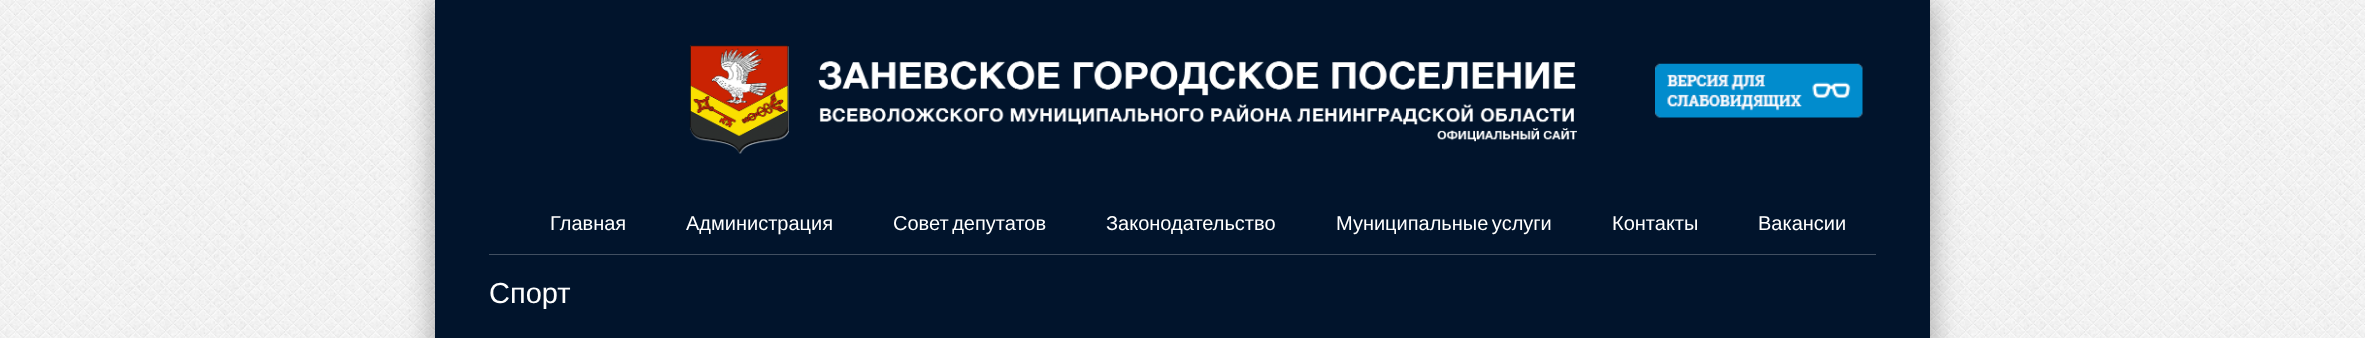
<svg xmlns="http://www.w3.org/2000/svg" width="2365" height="338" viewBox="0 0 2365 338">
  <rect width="100%" height="100%" fill="#fff"/>
  <image x="0" y="0" width="2365" height="338" href="img/1.png"/>
  <path d="M435 0h1495v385H435z" fill="#00000059" filter="blur(15.5px)"/>
  <path d="M435 0h1495v338H435z" fill="#01142c"/>
  <image x="689" y="45" width="888" height="109" href="img/2.png"/>
  <image x="1655" y="63" width="208" height="55" href="img/3.png"/>
  <path d="M489 254h1387v1H489z" fill="#414f61"/>
  <g font-family="Liberation Sans" font-size="20" fill="#fff">
    <text x="550" y="230">Главная</text>
    <text x="686" y="230">Администрация</text>
    <text x="893" y="230" word-spacing="-2">Совет депутатов</text>
    <text x="1106" y="230">Законодательство</text>
    <text x="1336" y="230" word-spacing="-2">Муниципальные услуги</text>
    <text x="1612" y="230">Контакты</text>
    <text x="1758" y="230">Вакансии</text>
  </g>
  <text x="489" y="303" font-family="Liberation Sans" font-size="29" fill="#fff">Спорт</text>
</svg>
